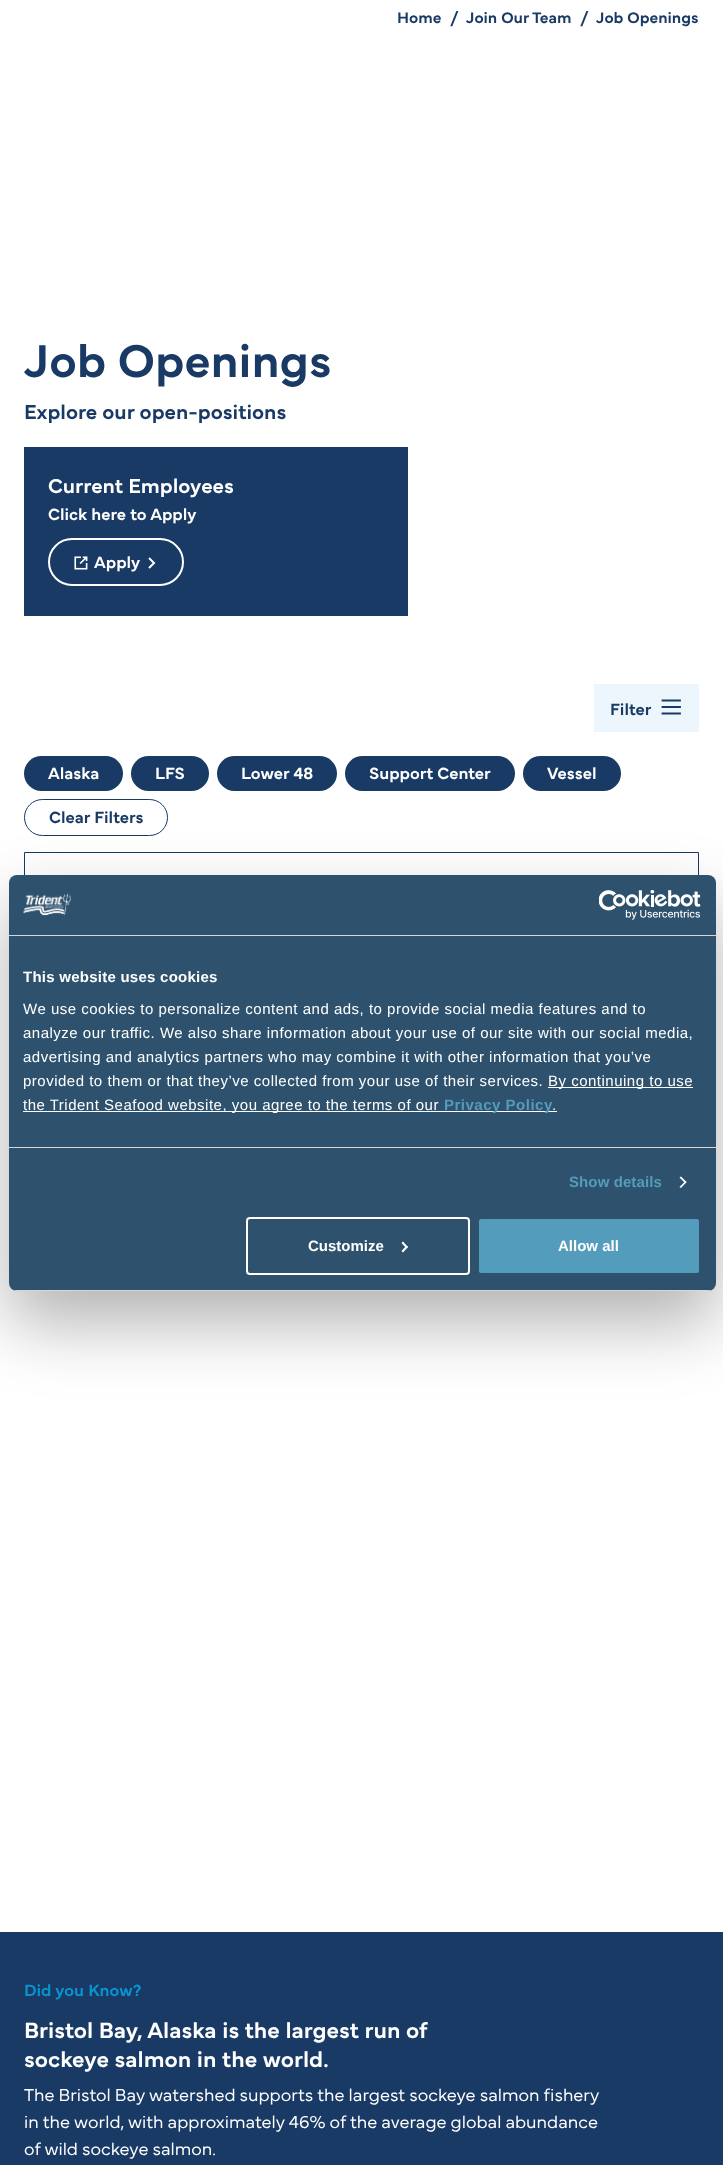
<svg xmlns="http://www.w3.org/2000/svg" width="723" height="2165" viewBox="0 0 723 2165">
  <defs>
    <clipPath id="clip1"><rect x="9" y="875" width="707" height="416" rx="8"/></clipPath>
  </defs>
  <rect width="100%" height="100%" fill="#fff"/>
  <path d="M24 447h384v169H24z" fill="#193a65"/>
  <rect x="49" y="539" width="134" height="46" rx="23" fill="none" stroke="#fff" stroke-width="2"/>
  <image x="74" y="556" width="14" height="14" href="img/1.png"/>
  <path d="M149 558L154 563L149 568" fill="none" stroke="#fff" stroke-width="2"/>
  <path d="M594 684h105v48H594z" fill="#eef6fd"/>
  <path d="M662.5 700.5H680M662.5 707H680M662.5 713.5H680" fill="none" stroke="#193a65" stroke-width="1.8" stroke-linecap="square"/>
  <rect x="24" y="756" width="99" height="35" rx="17.5" fill="#193a65"/>
  <rect x="131" y="756" width="78" height="35" rx="17.5" fill="#193a65"/>
  <rect x="217" y="756" width="120" height="35" rx="17.5" fill="#193a65"/>
  <rect x="345" y="756" width="170" height="35" rx="17.5" fill="#193a65"/>
  <rect x="523" y="756" width="98" height="35" rx="17.5" fill="#193a65"/>
  <rect x="24.5" y="799.5" width="143" height="36" rx="18" fill="none" stroke="#193a65"/>
  <path d="M24.5 852.5h674v143H24.5z" fill="none" stroke="#193a65"/>
  <rect x="9" y="907" width="707" height="416" rx="8" fill="#0000004d" filter="blur(34px)"/>
  <rect x="9" y="875" width="707" height="416" rx="8" fill="#2e526d"/>
  <path d="M9 935h707v1H9z" fill="#d6d6d6"/>
  <image x="23" y="893" width="48" height="23" href="img/2.png"/>
  <image x="599" y="890" width="102" height="30" href="img/3.png"/>
  <path d="M9 1147h707v1H9z" fill="#d6d6d6"/>
  <path d="M548 1087h145v1H548z" fill="#fff"/>
  <path d="M23 1111h534v1H23z" fill="#fff"/>
  <path d="M681 1176.5L686.5 1182L685.5 1183.5L679.5 1177.5Z" fill="#fff"/>
  <path d="M685.5 1181L686.5 1182L681 1188L679.5 1187Z" fill="#fff"/>
  <g clip-path="url(#clip1)">
    <path d="M9 1290h707v1H9z" fill="#d6d6d6"/>
  </g>
  <rect x="247" y="1218" width="222" height="56" rx="3" fill="none" stroke="#fff" stroke-width="2"/>
  <path d="M403 1241.5L408 1247L406.5 1248.5L401.5 1243Z" fill="#fff"/>
  <path d="M406.5 1245.5L408 1247L403 1252.5L401.5 1251Z" fill="#fff"/>
  <rect x="478" y="1218" width="222" height="56" rx="3" fill="#539cbb" stroke="#2e526d" stroke-width="2"/>
  <path d="M0 1932h723v233H0z" fill="#193a65"/>
  <g font-family="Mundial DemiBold" font-size="16" font-weight="600" fill="#193a65">
    <text x="397" y="23">Home</text>
    <text x="450" y="23">/</text>
    <text x="466" y="23">Join Our Team</text>
    <text x="580" y="23">/</text>
    <text x="596" y="23">Job Openings</text>
  </g>
  <text x="24" y="377" font-family="Mundial DemiBold" font-size="48" font-weight="600" fill="#193a65">Job Openings</text>
  <text x="24" y="419" font-family="Mundial DemiBold" font-size="21" font-weight="600" fill="#193a65">Explore our open-positions</text>
  <text x="48" y="493" font-family="Mundial DemiBold" font-size="21" font-weight="600" fill="#fff">Current Employees</text>
  <g font-family="Mundial DemiBold" font-size="17" font-weight="600" fill="#fff">
    <text x="48" y="520">Click here to Apply</text>
    <text x="94" y="568">Apply</text>
  </g>
  <text x="610" y="715" font-family="Mundial DemiBold" font-size="17" font-weight="600" fill="#193a65">Filter</text>
  <g font-family="Mundial DemiBold" font-size="17" font-weight="600" fill="#fff">
    <text x="48" y="779">Alaska</text>
    <text x="155" y="779">LFS</text>
    <text x="241" y="779">Lower 48</text>
    <text x="369" y="779">Support Center</text>
    <text x="547" y="779">Vessel</text>
  </g>
  <text x="49" y="823" font-family="Mundial DemiBold" font-size="17" font-weight="600" fill="#193a65">Clear Filters</text>
  <text x="23" y="982" font-family="Liberation Sans" font-size="15" font-weight="bold" letter-spacing="0.25" fill="#fff">This website uses cookies</text>
  <g font-family="Liberation Sans" font-size="15" letter-spacing="0.5" fill="#fff">
    <text x="23" y="1014">We use cookies to personalize content and ads, to provide social media features and to</text>
    <text x="23" y="1038">analyze our traffic. We also share information about your use of our site with our social media,</text>
    <text x="23" y="1062">advertising and analytics partners who may combine it with other information that you’ve</text>
    <text x="23" y="1086">provided to them or that they’ve collected from your use of their services.</text>
    <text x="548" y="1086">By continuing to use</text>
    <text x="23" y="1110">the Trident Seafood website, you agree to the terms of our</text>
  </g>
  <text x="444" y="1110" font-family="Liberation Sans" font-size="15" font-weight="bold" letter-spacing="0.5" fill="#539cbb">Privacy Policy</text>
  <text x="552" y="1110" font-family="Liberation Sans" font-size="15" letter-spacing="0.5" fill="#fff">.</text>
  <text x="569" y="1187" font-family="Liberation Sans" font-size="15" font-weight="bold" letter-spacing="0.1" fill="#539cbb">Show details</text>
  <g font-family="Liberation Sans" font-size="15" font-weight="bold" fill="#fff">
    <text x="308" y="1251">Customize</text>
    <text x="558" y="1251">Allow all</text>
  </g>
  <text x="24" y="1996" font-family="Mundial DemiBold" font-size="17" font-weight="600" fill="#0a93d1">Did you Know?</text>
  <g font-family="Mundial DemiBold" font-size="23" font-weight="600" fill="#fff">
    <text x="24" y="2038">Bristol Bay, Alaska is the largest run of</text>
    <text x="24" y="2067">sockeye salmon in the world.</text>
  </g>
  <g font-family="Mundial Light" font-size="18" font-weight="300" fill="#fff">
    <text x="24" y="2101">The Bristol Bay watershed supports the largest sockeye salmon fishery</text>
    <text x="24" y="2128">in the world, with approximately 46% of the average global abundance</text>
    <text x="24" y="2155">of wild sockeye salmon.</text>
  </g>
</svg>
